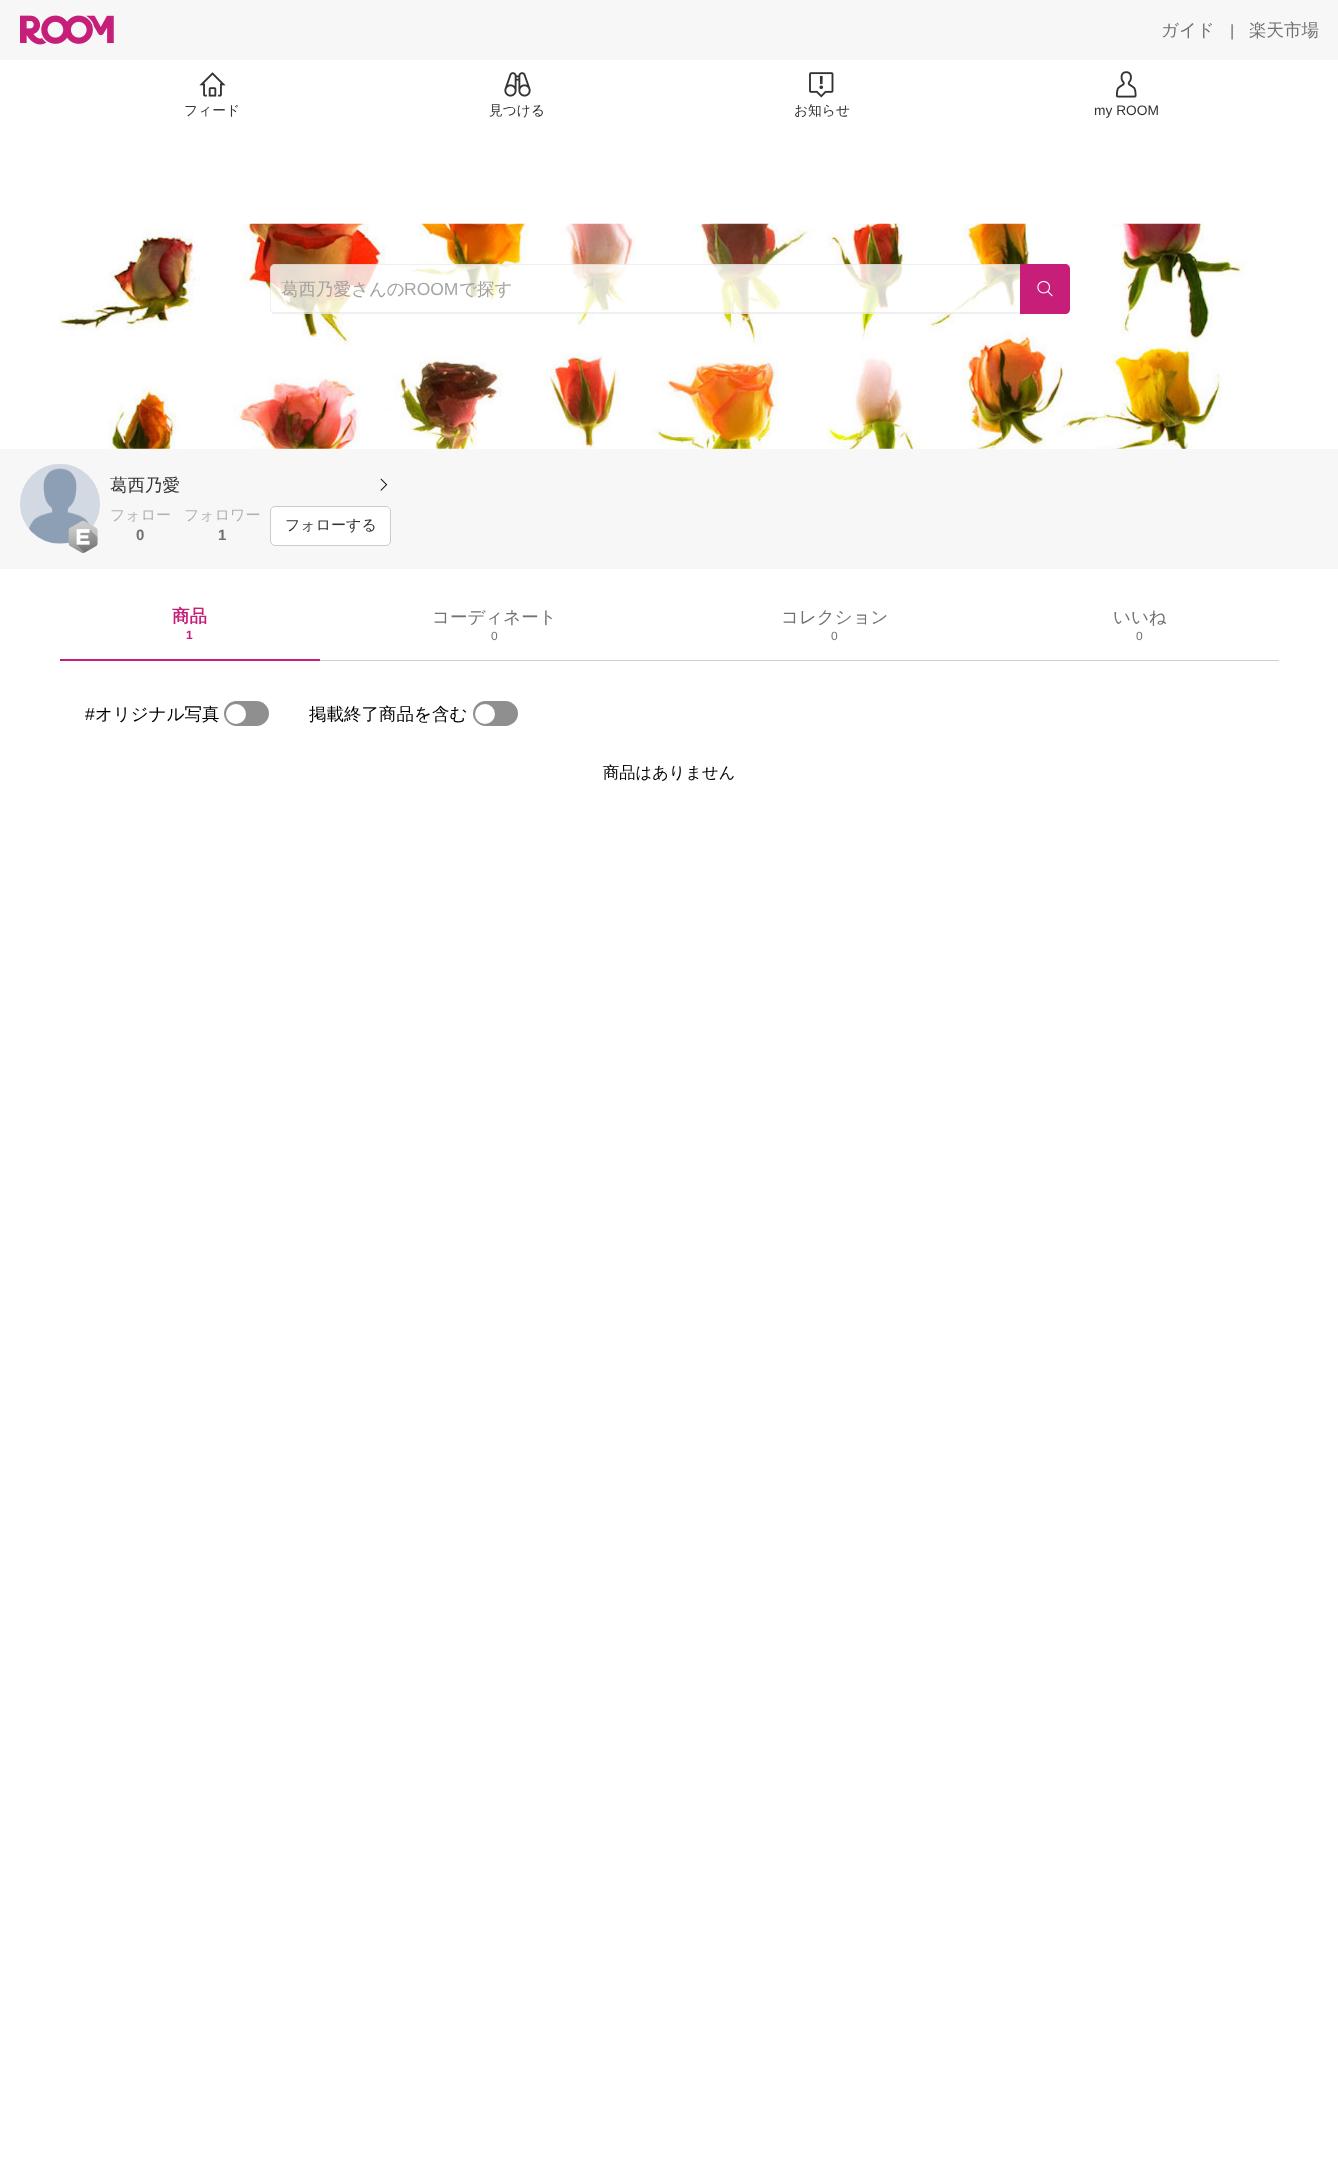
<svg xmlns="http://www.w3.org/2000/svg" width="1338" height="2173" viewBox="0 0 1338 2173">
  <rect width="100%" height="100%" fill="#fff"/>
  <path d="M0 0h1338v60H0z" fill="#f7f7f7"/>
  <image x="20" y="15" width="94" height="30" href="img/1.png"/>
  <image x="199" y="72" width="27" height="25" href="img/2.png"/>
  <image x="504" y="72" width="27" height="25" href="img/3.png"/>
  <image x="809" y="72" width="25" height="26" href="img/4.png"/>
  <image x="1115" y="71" width="22" height="27" href="img/5.png"/>
  <image x="59" y="223" width="1187" height="226" href="img/6.png"/>
  <path d="M275 264H1020V314H275C272 314 270 312 270 309V269C270 266 272 264 275 264Z" fill="#ffffffcc"/>
  <path d="M275 264H1020V314H275C272 314 270 312 270 309V269C270 266 272 264 275 264ZM275 265H1020V312H275C273 312 271 311 271 309V269C271 267 273 265 275 265Z" fill="#0000000f" fill-rule="evenodd"/>
  <path d="M1020 264H1065C1068 264 1070 266 1070 269V309C1070 312 1068 314 1065 314H1020Z" fill="#c61e79"/>
  <image x="1037" y="280" width="16" height="17" href="img/7.png"/>
  <path d="M0 449h1338v120H0z" fill="#f7f7f7"/>
  <image x="20" y="464" width="80" height="80" href="img/8.png"/>
  <image x="68" y="520" width="30" height="33" href="img/9.png"/>
  <image x="380" y="478" width="8" height="13" href="img/10.png"/>
  <rect x="270" y="506" width="121" height="40" rx="5" fill="#fff"/>
  <rect x="270.5" y="506.5" width="120" height="39" rx="4.5" fill="none" stroke="#00000033"/>
  <path d="M60 659h260v2H60z" fill="#c61e79"/>
  <path d="M320 660h959v1H320z" fill="#d1d1d1"/>
  <rect x="225.5" y="702.5" width="42" height="22" rx="11" fill="#8f8f8f" stroke="#8f8f8f" stroke-width="3"/>
  <circle cx="236" cy="714" r="10" fill="#fff"/>
  <rect x="474.5" y="702.5" width="42" height="22" rx="11" fill="#8f8f8f" stroke="#8f8f8f" stroke-width="3"/>
  <circle cx="485" cy="714" r="10" fill="#fff"/>
  <text x="1161" y="36" font-family="WenQuanYi Zen Hei" font-size="17.5" font-weight="500" fill="#717171">ガイド</text>
  <text x="1230" y="36" font-family="Liberation Sans" font-size="16.25" fill="#717171">|</text>
  <text x="1249" y="36" font-family="WenQuanYi Zen Hei" font-size="17.5" font-weight="500" fill="#717171">楽天市場</text>
  <g font-family="WenQuanYi Zen Hei" font-size="13.75" font-weight="500" fill="#333">
    <text x="184" y="115">フィード</text>
    <text x="489" y="115">見つける</text>
    <text x="794" y="115">お知らせ</text>
  </g>
  <text x="1094" y="115" font-family="Liberation Sans" font-size="13.75" fill="#333">my ROOM</text>
  <text x="281" y="295" font-family="WenQuanYi Zen Hei" font-size="17.5" font-weight="500" fill="#a3a19e">葛西乃愛さんの</text>
  <text x="404" y="295" font-family="Liberation Sans" font-size="17.5" fill="#a5a5a5">ROOM</text>
  <text x="459" y="295" font-family="WenQuanYi Zen Hei" font-size="17.5" font-weight="500" fill="#a3a19e">で探す</text>
  <text x="110" y="491" font-family="WenQuanYi Zen Hei" font-size="17.5" font-weight="500" fill="#333">葛西乃愛</text>
  <text x="110" y="520" font-family="WenQuanYi Zen Hei" font-size="15" font-weight="500" fill="#b2b2b2">フォロー</text>
  <text x="136" y="540" font-family="Liberation Sans" font-size="15" font-weight="bold" fill="#717171">0</text>
  <text x="184" y="520" font-family="WenQuanYi Zen Hei" font-size="15" font-weight="500" fill="#b2b2b2">フォロワー</text>
  <text x="218" y="540" font-family="Liberation Sans" font-size="15" font-weight="bold" fill="#717171">1</text>
  <text x="285" y="530" font-family="WenQuanYi Zen Hei" font-size="15" font-weight="500" fill="#333">フォローする</text>
  <text x="172" y="622" font-family="WenQuanYi Zen Hei" font-size="17.5" font-weight="bold" fill="#c61e79">商品</text>
  <text x="186" y="639" font-family="Liberation Sans" font-size="12" font-weight="bold" fill="#c61e79">1</text>
  <text x="432" y="623" font-family="WenQuanYi Zen Hei" font-size="17.5" font-weight="500" fill="#717171">コーディネート</text>
  <text x="491" y="640" font-family="Liberation Sans" font-size="12" fill="#717171">0</text>
  <text x="781" y="623" font-family="WenQuanYi Zen Hei" font-size="17.5" font-weight="500" fill="#717171">コレクション</text>
  <text x="831" y="640" font-family="Liberation Sans" font-size="12" fill="#717171">0</text>
  <text x="1113" y="623" font-family="WenQuanYi Zen Hei" font-size="17.5" font-weight="500" fill="#717171">いいね</text>
  <text x="1136" y="640" font-family="Liberation Sans" font-size="12" fill="#717171">0</text>
  <text x="85" y="720" font-family="Liberation Sans" font-size="17.5" fill="#000">#</text>
  <g font-family="WenQuanYi Zen Hei" font-size="17.5" font-weight="500" fill="#000">
    <text x="95" y="720">オリジナル写真</text>
    <text x="309" y="720">掲載終了商品を含む</text>
  </g>
  <text x="603" y="778" font-family="WenQuanYi Zen Hei" font-size="16.25" font-weight="500" fill="#000">商品はありません</text>
</svg>
